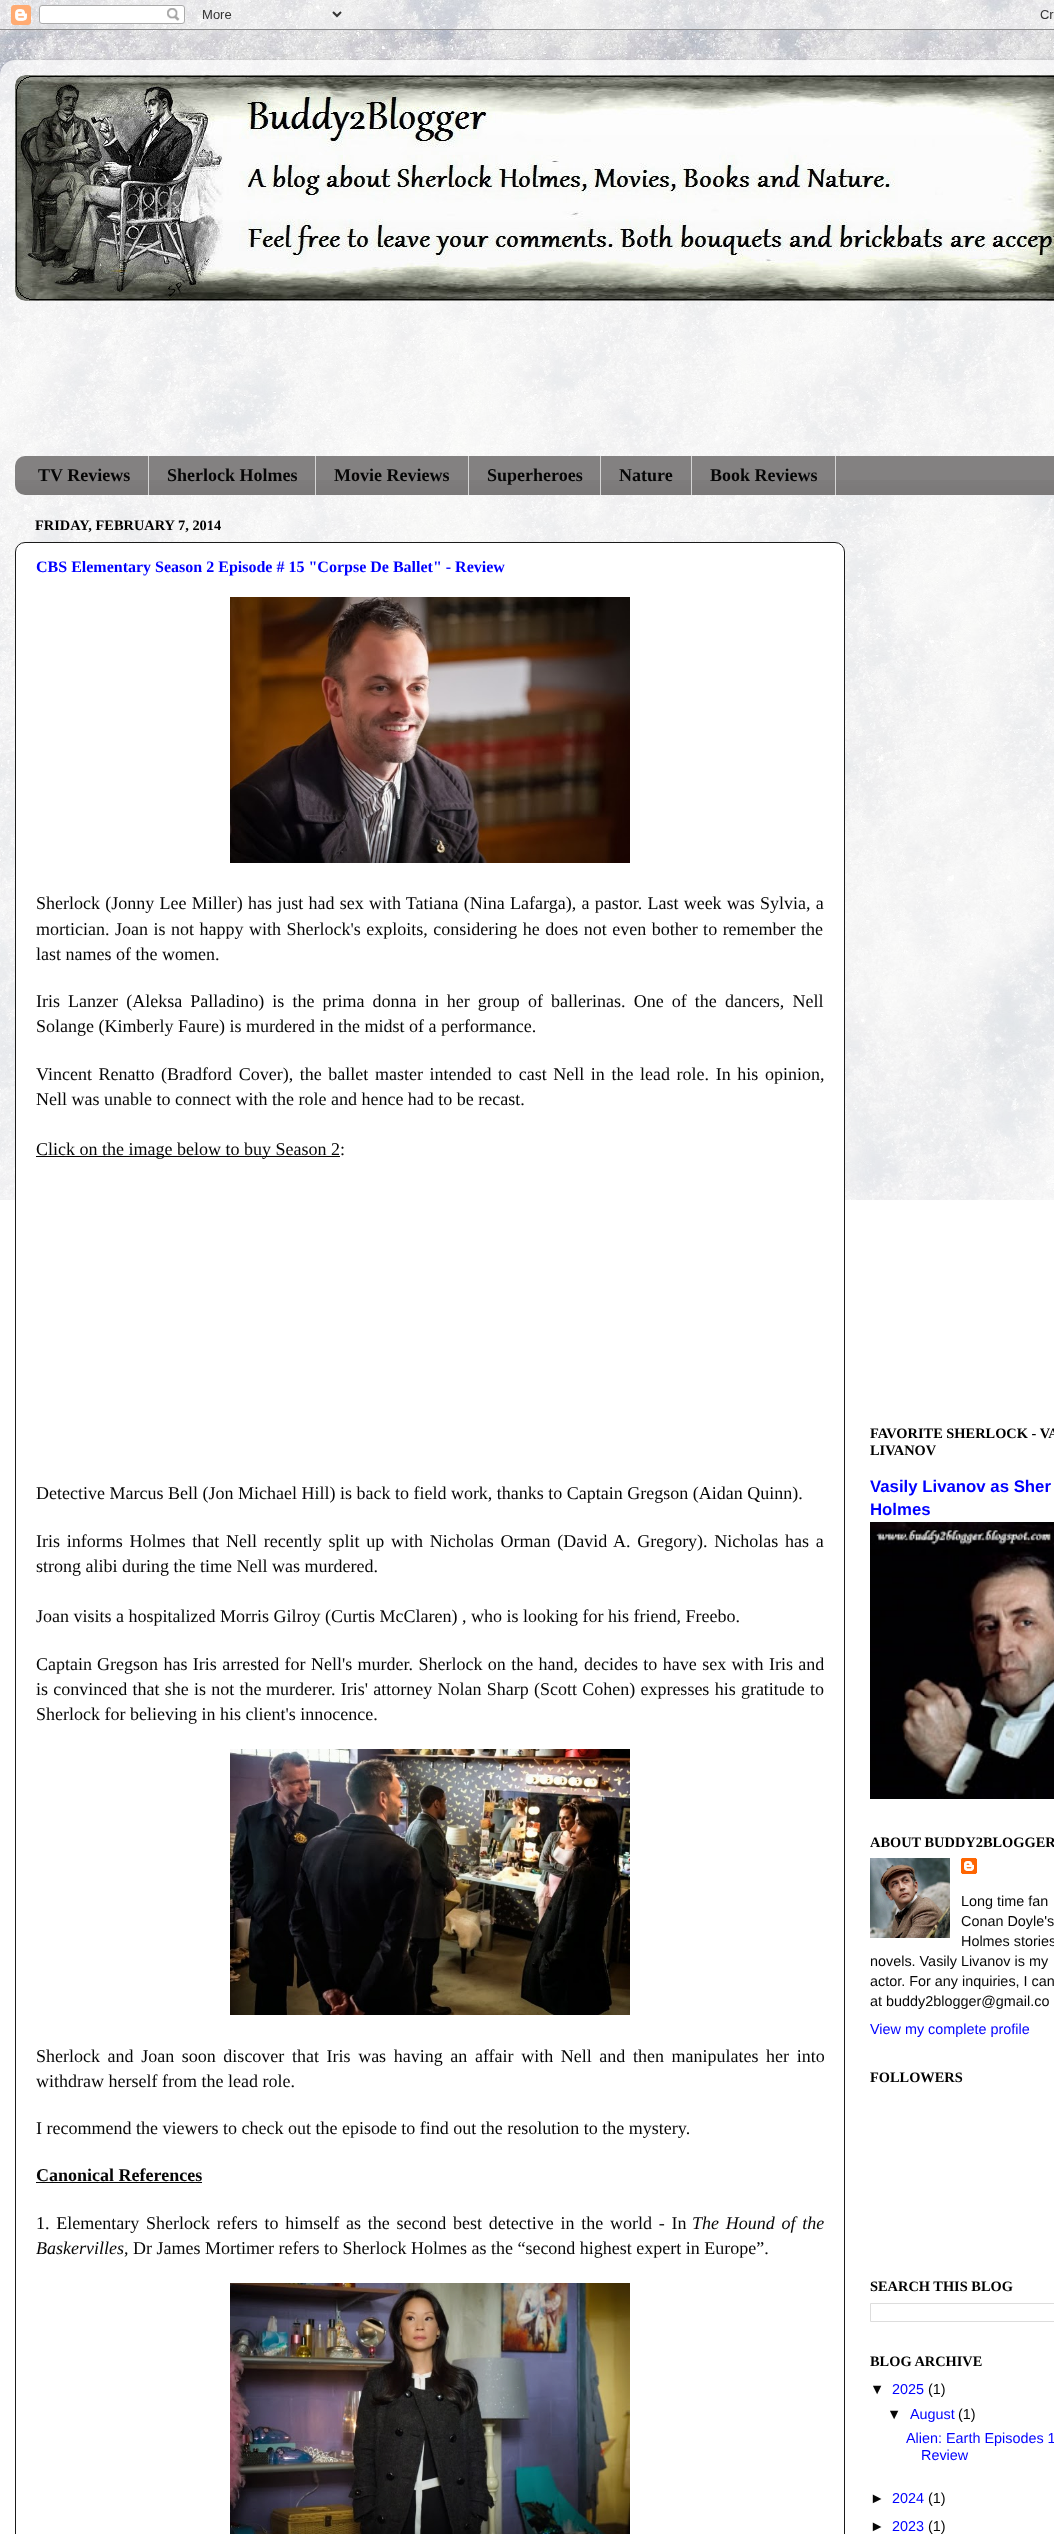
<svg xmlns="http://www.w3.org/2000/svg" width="1054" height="2534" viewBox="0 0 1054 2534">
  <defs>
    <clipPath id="clip1"><path d="M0 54H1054V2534H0ZM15 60H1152C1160.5 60 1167 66.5 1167 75V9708C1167 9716.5 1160.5 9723 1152 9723H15C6.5 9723 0 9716.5 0 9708V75C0 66.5 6.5 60 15 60Z" clip-rule="evenodd"/></clipPath>
  </defs>
  <rect width="100%" height="100%" fill="#fff"/>
  <image x="0" y="0" width="1054" height="1200" href="img/1.png"/>
  <image x="0" y="0" width="1054" height="30" href="img/2.png"/>
  <g clip-path="url(#clip1)">
    <rect y="60" width="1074" height="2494" rx="15" fill="#00000026" filter="blur(1.5px)"/>
  </g>
  <image x="0" y="60" width="1054" height="2474" href="img/3.png"/>
  <rect x="15" y="75" width="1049" height="226" rx="10" fill="#fff"/>
  <image x="15" y="75" width="1039" height="226" href="img/4.png"/>
  <rect x="15" y="456" width="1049" height="39" rx="10" fill="#838181"/>
  <image x="15" y="480" width="1039" height="15" href="img/5.png"/>
  <path d="M148 456h1v39H148z" fill="#d5d5d5"/>
  <path d="M315 456h1v39H315z" fill="#d5d5d5"/>
  <path d="M468 456h1v39H468z" fill="#d5d5d5"/>
  <path d="M600 456h1v39H600z" fill="#d5d5d5"/>
  <path d="M691 456h1v39H691z" fill="#d5d5d5"/>
  <path d="M835 456h1v39H835z" fill="#d5d5d5"/>
  <rect x="15.5" y="542.5" width="829" height="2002" rx="9.5" fill="#fff" stroke="#1b1b1b"/>
  <image x="230" y="597" width="400" height="266" href="img/6.png"/>
  <path d="M36 1156h304v1H36z" fill="#060606"/>
  <image x="230" y="1749" width="400" height="266" href="img/7.png"/>
  <path d="M36 2182h166v1H36z" fill="#060606"/>
  <image x="230" y="2283" width="400" height="251" href="img/8.png"/>
  <image x="870" y="1522" width="184" height="277" href="img/9.png"/>
  <image x="870" y="1858" width="80" height="80" href="img/10.png"/>
  <image x="961" y="1858" width="16" height="16" href="img/11.png"/>
  <path d="M870.5 2303.5h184v18H870.5z" fill="none" stroke="#ddd"/>
  <g font-family="Liberation Serif" font-size="18" font-weight="bold" fill="#060606">
    <text x="38" y="481">TV Reviews</text>
    <text x="167" y="481">Sherlock Holmes</text>
    <text x="334" y="481">Movie Reviews</text>
    <text x="487" y="481">Superheroes</text>
    <text x="619" y="481">Nature</text>
    <text x="710" y="481">Book Reviews</text>
  </g>
  <text x="35" y="530" font-family="Liberation Serif" font-size="14.4" font-weight="bold" fill="#000">FRIDAY, FEBRUARY 7, 2014</text>
  <text x="36" y="572" font-family="Liberation Serif" font-size="16" font-weight="bold" fill="#00f">CBS Elementary Season 2 Episode # 15 "Corpse De Ballet" - Review</text>
  <g font-family="Liberation Serif" font-size="18" fill="#060606">
    <text x="36" y="909" word-spacing="0.75">Sherlock (Jonny Lee Miller) has just had sex with Tatiana (Nina Lafarga), a pastor. Last week was Sylvia, a</text>
    <text x="36" y="935" word-spacing="1">mortician. Joan is not happy with Sherlock's exploits, considering he does not even bother to remember the</text>
    <text x="36" y="960">last names of the women.</text>
    <text x="36" y="1007" word-spacing="3.6">Iris Lanzer (Aleksa Palladino) is the prima donna in her group of ballerinas. One of the dancers, Nell</text>
    <text x="36" y="1032">Solange (Kimberly Faure) is murdered in the midst of a performance.</text>
    <text x="36" y="1080" word-spacing="2.1">Vincent Renatto (Bradford Cover), the ballet master intended to cast Nell in the lead role. In his opinion,</text>
    <text x="36" y="1105">Nell was unable to connect with the role and hence had to be recast.</text>
    <text x="36" y="1155">Click on the image below to buy Season 2:</text>
    <text x="36" y="1499">Detective Marcus Bell (Jon Michael Hill) is back to field work, thanks to Captain Gregson (Aidan Quinn).</text>
    <text x="36" y="1547" word-spacing="2.25">Iris informs Holmes that Nell recently split up with Nicholas Orman (David A. Gregory). Nicholas has a</text>
    <text x="36" y="1572">strong alibi during the time Nell was murdered.</text>
    <text x="36" y="1622">Joan visits a hospitalized Morris Gilroy (Curtis McClaren) , who is looking for his friend, Freebo.</text>
    <text x="36" y="1670">Captain</text>
    <text x="97" y="1670" word-spacing="0.9">Gregson has Iris arrested for Nell's murder. Sherlock on the hand,</text>
    <text x="584" y="1670" word-spacing="0.9">decides to have sex with Iris and</text>
    <text x="36" y="1695" word-spacing="0.75">is convinced that she is not the</text>
    <text x="266" y="1695" word-spacing="0.75">murderer. Iris' attorney Nolan Sharp (Scott Cohen) expresses his gratitude to</text>
    <text x="36" y="1720">Sherlock for believing in his client's innocence.</text>
    <text x="36" y="2062" word-spacing="3.1">Sherlock and Joan soon discover that Iris was having an affair with Nell and then manipulates her into</text>
    <text x="36" y="2087">withdraw herself from the lead role.</text>
    <text x="36" y="2134">I recommend the viewers to check out the episode to find out the resolution to the mystery.</text>
  </g>
  <text x="36" y="2181" font-family="Liberation Serif" font-size="18" font-weight="bold" fill="#060606">Canonical References</text>
  <text x="36" y="2229" word-spacing="2.25" font-family="Liberation Serif" font-size="18" fill="#060606">1. Elementary Sherlock refers to himself as the second best detective in the world - In</text>
  <g font-family="Liberation Serif" font-size="18" font-style="italic" fill="#060606">
    <text x="692" y="2229" word-spacing="2.25">The Hound of the</text>
    <text x="36" y="2254">Baskervilles</text>
  </g>
  <text x="124" y="2254" font-family="Liberation Serif" font-size="18" fill="#060606">, Dr James Mortimer refers to Sherlock Holmes as the “second highest expert in Europe”.</text>
  <g font-family="Liberation Serif" font-size="14.4" font-weight="bold" fill="#000">
    <text x="870" y="1438">FAVORITE SHERLOCK - VA</text>
    <text x="870" y="1455">LIVANOV</text>
  </g>
  <g font-family="Liberation Sans" font-size="16.8" font-weight="bold" fill="#00f">
    <text x="870" y="1492">Vasily Livanov as Sher</text>
    <text x="870" y="1515">Holmes</text>
  </g>
  <text x="870" y="1847" font-family="Liberation Serif" font-size="14.4" font-weight="bold" fill="#000">ABOUT BUDDY2BLOGGER</text>
  <g font-family="Liberation Sans" font-size="14.4" fill="#060606">
    <text x="961" y="1906">Long time fan</text>
    <text x="961" y="1926">Conan Doyle's</text>
    <text x="961" y="1946">Holmes stories</text>
    <text x="870" y="1966">novels. Vasily Livanov is my</text>
    <text x="870" y="1986">actor. For any inquiries, I can</text>
    <text x="870" y="2006">at buddy2blogger@gmail.co</text>
  </g>
  <text x="870" y="2034" font-family="Liberation Sans" font-size="14.4" fill="#00f">View my complete profile</text>
  <g font-family="Liberation Serif" font-size="14.4" font-weight="bold" fill="#000">
    <text x="870" y="2082">FOLLOWERS</text>
    <text x="870" y="2291">SEARCH THIS BLOG</text>
    <text x="870" y="2366">BLOG ARCHIVE</text>
  </g>
  <text x="870" y="2394" font-family="Liberation Sans" font-size="14.4" fill="#060606">▼</text>
  <text x="892" y="2394" font-family="Liberation Sans" font-size="14.4" fill="#00f">2025</text>
  <g font-family="Liberation Sans" font-size="14.4" fill="#060606">
    <text x="928" y="2394">(1)</text>
    <text x="887" y="2419">▼</text>
  </g>
  <text x="910" y="2419" font-family="Liberation Sans" font-size="14.4" fill="#00f">August</text>
  <text x="958" y="2419" font-family="Liberation Sans" font-size="14.4" fill="#060606">(1)</text>
  <g font-family="Liberation Sans" font-size="14.4" fill="#00f">
    <text x="906" y="2443">Alien: Earth Episodes 1</text>
    <text x="921" y="2460">Review</text>
  </g>
  <text x="870" y="2503" font-family="Liberation Sans" font-size="14.4" fill="#060606">►</text>
  <text x="892" y="2503" font-family="Liberation Sans" font-size="14.4" fill="#00f">2024</text>
  <g font-family="Liberation Sans" font-size="14.4" fill="#060606">
    <text x="928" y="2503">(1)</text>
    <text x="870" y="2531">►</text>
  </g>
  <text x="892" y="2531" font-family="Liberation Sans" font-size="14.4" fill="#00f">2023</text>
  <text x="928" y="2531" font-family="Liberation Sans" font-size="14.4" fill="#060606">(1)</text>
</svg>
